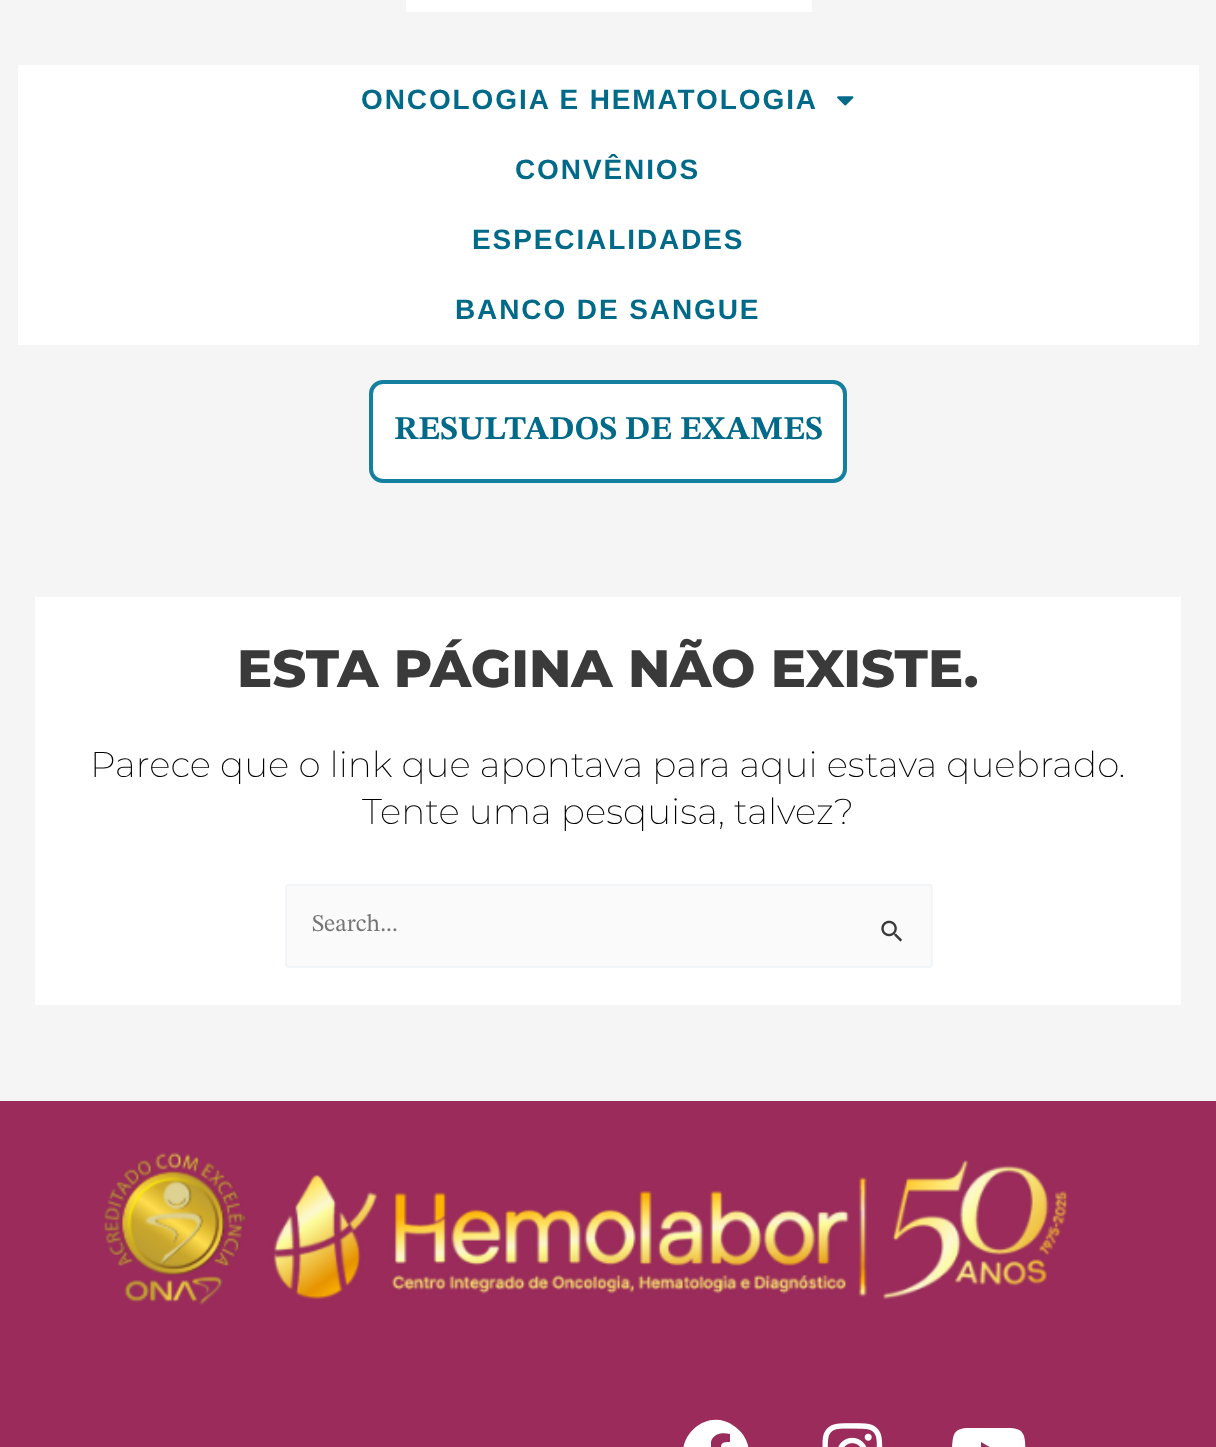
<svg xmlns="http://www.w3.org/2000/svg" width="1216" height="1447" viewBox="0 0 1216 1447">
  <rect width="100%" height="100%" fill="#f5f5f5"/>
  <path d="M406 0h406v12H406z" fill="#fff"/>
  <path d="M18 65h1181v280H18z" fill="#fff"/>
  <image x="837" y="96" width="17" height="10" href="img/1.png"/>
  <rect x="371" y="382" width="474" height="99" rx="12" fill="#fff" stroke="#147f9e" stroke-width="4"/>
  <path d="M35 597h1146v408H35z" fill="#fff"/>
  <rect x="286" y="885" width="646" height="82" rx="3" fill="#fafafa" stroke="#f2f5f7" stroke-width="2"/>
  <image x="881" y="920" width="22" height="22" href="img/2.png"/>
  <path d="M0 1101h1216v346H0z" fill="#9a2b5b"/>
  <image x="103" y="1152" width="965" height="153" href="img/3.png"/>
  <path d="M749 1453C749 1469 737 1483 721 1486V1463H729L730 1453H721C721 1444 720 1442 730 1442V1434C723 1432 713 1433 711 1442V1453H702V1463H711V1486C703 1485 696 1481 691 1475C666 1446 703 1404 734 1426C743 1432 749 1442 749 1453Z" fill="#fff"/>
  <image x="822" y="1423" width="61" height="24" href="img/4.png"/>
  <path d="M1024 1436C1026 1443 1025 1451 1025 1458C1025 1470 1025 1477 1011 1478L979 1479C972 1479 956 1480 954 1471C952 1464 952 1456 952 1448C953 1436 953 1429 966 1428H983H1004C1011 1428 1021 1427 1024 1436ZM981 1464L1000 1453L981 1442Z" fill="#fff"/>
  <g font-family="Liberation Sans" font-size="28" font-weight="bold" letter-spacing="1.9" fill="#016a89">
    <text x="361" y="109">ONCOLOGIA E HEMATOLOGIA</text>
    <text x="515" y="179">CONVÊNIOS</text>
    <text x="472" y="249">ESPECIALIDADES</text>
    <text x="455" y="319">BANCO DE SANGUE</text>
  </g>
  <text x="394" y="439" font-family="STIX Two Text" font-size="33.25" font-weight="bold" fill="#016a89">RESULTADOS DE EXAMES</text>
  <text x="237" y="687" font-family="Montserrat" font-size="52.5" font-weight="800" fill="#3a3a3a">ESTA PÁGINA NÃO EXISTE.</text>
  <g font-family="Montserrat" font-size="35.9" font-weight="200" fill="#000">
    <text x="90" y="777">Parece que o link que apontava para aqui estava quebrado.</text>
    <text x="362" y="824">Tente uma pesquisa, talvez?</text>
  </g>
  <text x="312" y="931" font-family="STIX Two Text" font-size="24" fill="#757575">Search...</text>
</svg>
